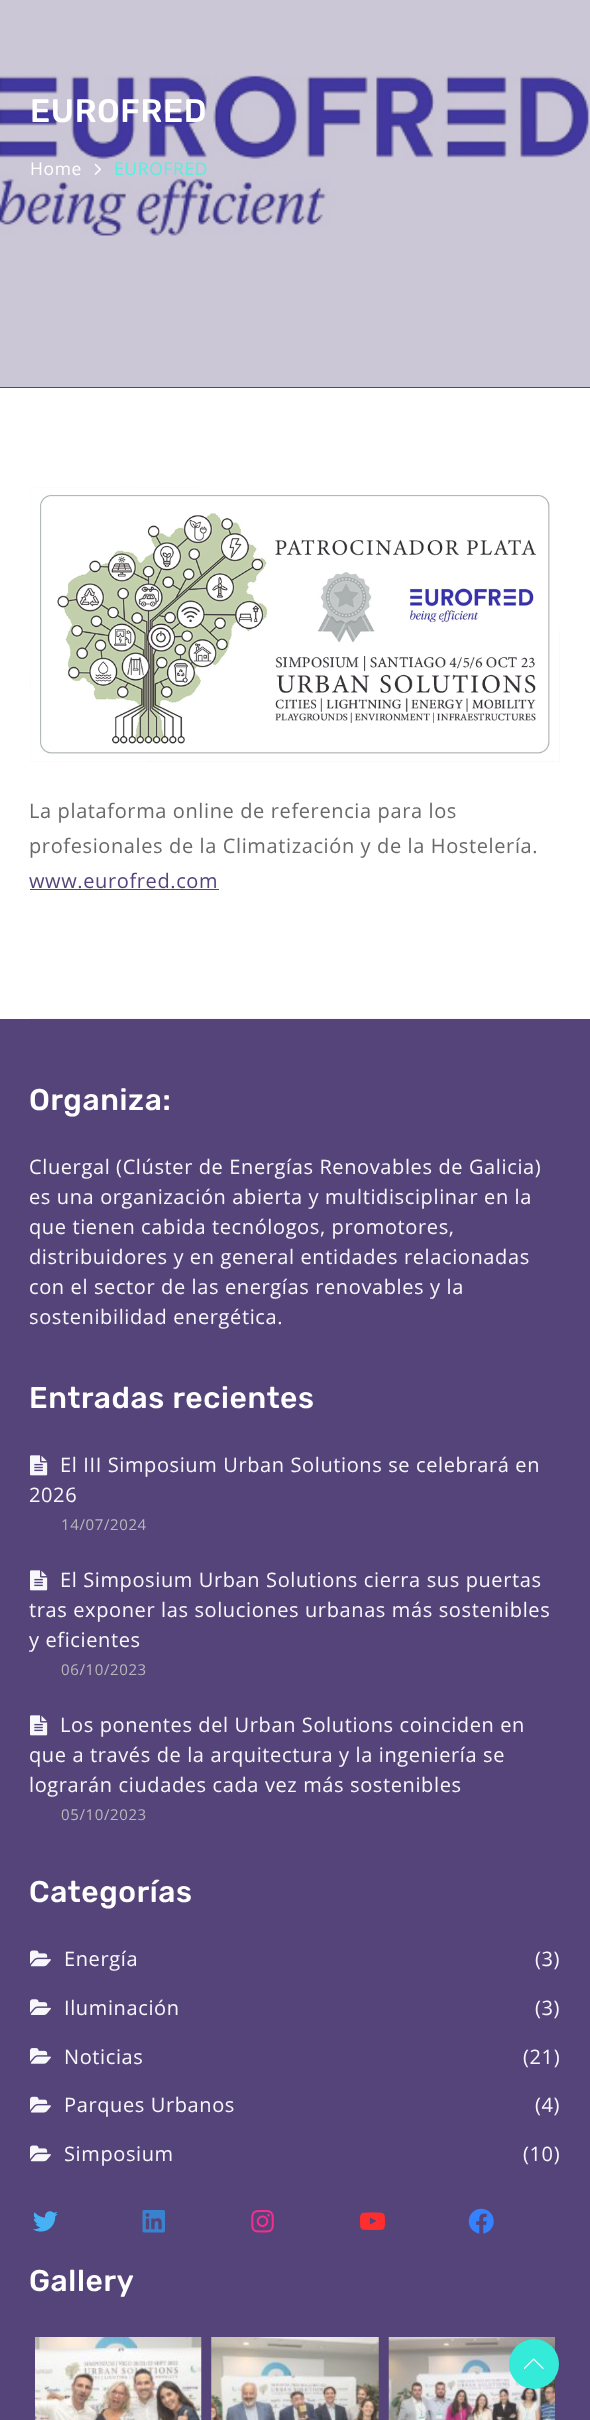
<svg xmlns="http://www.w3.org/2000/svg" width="590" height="2420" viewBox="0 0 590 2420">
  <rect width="100%" height="100%" fill="#fff"/>
  <path d="M0 387h590v1H0z" fill="#54447a"/>
  <image x="0" y="0" width="590" height="387" href="img/1.png"/>
  <image x="94" y="163" width="7" height="12" href="img/2.png"/>
  <path d="M30 1018h530v1H30z" fill="#f8f8fc"/>
  <image x="30" y="487" width="530" height="275" href="img/3.png"/>
  <path d="M30 889h189v1H30z" fill="#54447a"/>
  <path d="M0 1019h590v1401H0z" fill="#54447a"/>
  <image x="30" y="1455" width="18" height="21" href="img/4.png"/>
  <image x="30" y="1570" width="18" height="21" href="img/4.png"/>
  <image x="30" y="1715" width="18" height="21" href="img/4.png"/>
  <image x="30" y="1950" width="21" height="17" href="img/5.png"/>
  <image x="30" y="1999" width="21" height="16" href="img/6.png"/>
  <image x="30" y="2048" width="21" height="16" href="img/7.png"/>
  <image x="30" y="2096" width="21" height="17" href="img/8.png"/>
  <image x="30" y="2145" width="21" height="17" href="img/5.png"/>
  <image x="33" y="2211" width="25" height="21" href="img/9.png"/>
  <image x="142" y="2210" width="23" height="23" href="img/10.png"/>
  <image x="251" y="2210" width="23" height="23" href="img/11.png"/>
  <image x="360" y="2212" width="25" height="19" href="img/12.png"/>
  <image x="468" y="2208" width="26" height="26" href="img/13.png"/>
  <image x="35" y="2337" width="167" height="83" href="img/14.png"/>
  <image x="211" y="2337" width="168" height="83" href="img/15.png"/>
  <image x="388" y="2337" width="167" height="83" href="img/16.png"/>
  <circle cx="534" cy="2364" r="25" fill="#34ead8"/>
  <image x="524" y="2358" width="20" height="11" href="img/17.png"/>
  <text x="30" y="122" font-family="Rubik" font-size="32.5" font-weight="500" letter-spacing="0.62" fill="#fff">EUROFRED</text>
  <text x="30" y="175" font-family="Open Sans" font-size="17.5" letter-spacing="0.62" fill="#fff">Home</text>
  <text x="114" y="175" font-family="Open Sans" font-size="17.5" letter-spacing="0.62" fill="#59eedf">EUROFRED</text>
  <g font-family="Open Sans" font-size="20" letter-spacing="0.62" fill="#696969">
    <text x="29" y="818">La plataforma online de referencia para los</text>
    <text x="29" y="853">profesionales de la Climatización y de la Hostelería.</text>
  </g>
  <text x="29" y="888" font-family="Open Sans" font-size="20" letter-spacing="0.62" fill="#54447a">www.eurofred.com</text>
  <text x="29" y="1110" font-family="Rubik" font-size="30" font-weight="500" letter-spacing="0.62" fill="#fff">Organiza:</text>
  <g font-family="Open Sans" font-size="20" letter-spacing="0.62" fill="#f8f8fc">
    <text x="29" y="1174">Cluergal (Clúster de Energías Renovables de Galicia)</text>
    <text x="29" y="1204">es una organización abierta y multidisciplinar en la</text>
    <text x="29" y="1234">que tienen cabida tecnólogos, promotores,</text>
    <text x="29" y="1264">distribuidores y en general entidades relacionadas</text>
    <text x="29" y="1294">con el sector de las energías renovables y la</text>
    <text x="29" y="1324">sostenibilidad energética.</text>
  </g>
  <text x="29" y="1408" font-family="Rubik" font-size="30" font-weight="500" letter-spacing="0.62" fill="#fff">Entradas recientes</text>
  <g font-family="Open Sans" font-size="20" letter-spacing="0.62" fill="#f8f8fc">
    <text x="60" y="1472">El III Simposium Urban Solutions se celebrará en</text>
    <text x="29" y="1502">2026</text>
  </g>
  <text x="61" y="1530" font-family="Open Sans" font-size="15" letter-spacing="0.62" fill="#b9b9b9">14/07/2024</text>
  <g font-family="Open Sans" font-size="20" letter-spacing="0.62" fill="#f8f8fc">
    <text x="60" y="1587">El Simposium Urban Solutions cierra sus puertas</text>
    <text x="29" y="1617">tras exponer las soluciones urbanas más sostenibles</text>
    <text x="29" y="1647">y eficientes</text>
  </g>
  <text x="61" y="1675" font-family="Open Sans" font-size="15" letter-spacing="0.62" fill="#b9b9b9">06/10/2023</text>
  <g font-family="Open Sans" font-size="20" letter-spacing="0.62" fill="#f8f8fc">
    <text x="60" y="1732">Los ponentes del Urban Solutions coinciden en</text>
    <text x="29" y="1762">que a través de la arquitectura y la ingeniería se</text>
    <text x="29" y="1792">lograrán ciudades cada vez más sostenibles</text>
  </g>
  <text x="61" y="1820" font-family="Open Sans" font-size="15" letter-spacing="0.62" fill="#b9b9b9">05/10/2023</text>
  <text x="29" y="1902" font-family="Rubik" font-size="30" font-weight="500" letter-spacing="0.62" fill="#fff">Categorías</text>
  <g font-family="Open Sans" font-size="20" letter-spacing="0.62" fill="#f8f8fc">
    <text x="64" y="1966">Energía</text>
    <text x="535" y="1966">(3)</text>
    <text x="64" y="2015">Iluminación</text>
    <text x="535" y="2015">(3)</text>
    <text x="64" y="2064">Noticias</text>
    <text x="523" y="2064">(21)</text>
    <text x="64" y="2112">Parques Urbanos</text>
    <text x="535" y="2112">(4)</text>
    <text x="64" y="2161">Simposium</text>
    <text x="523" y="2161">(10)</text>
  </g>
  <text x="29" y="2291" font-family="Rubik" font-size="30" font-weight="500" letter-spacing="0.62" fill="#fff">Gallery</text>
</svg>
